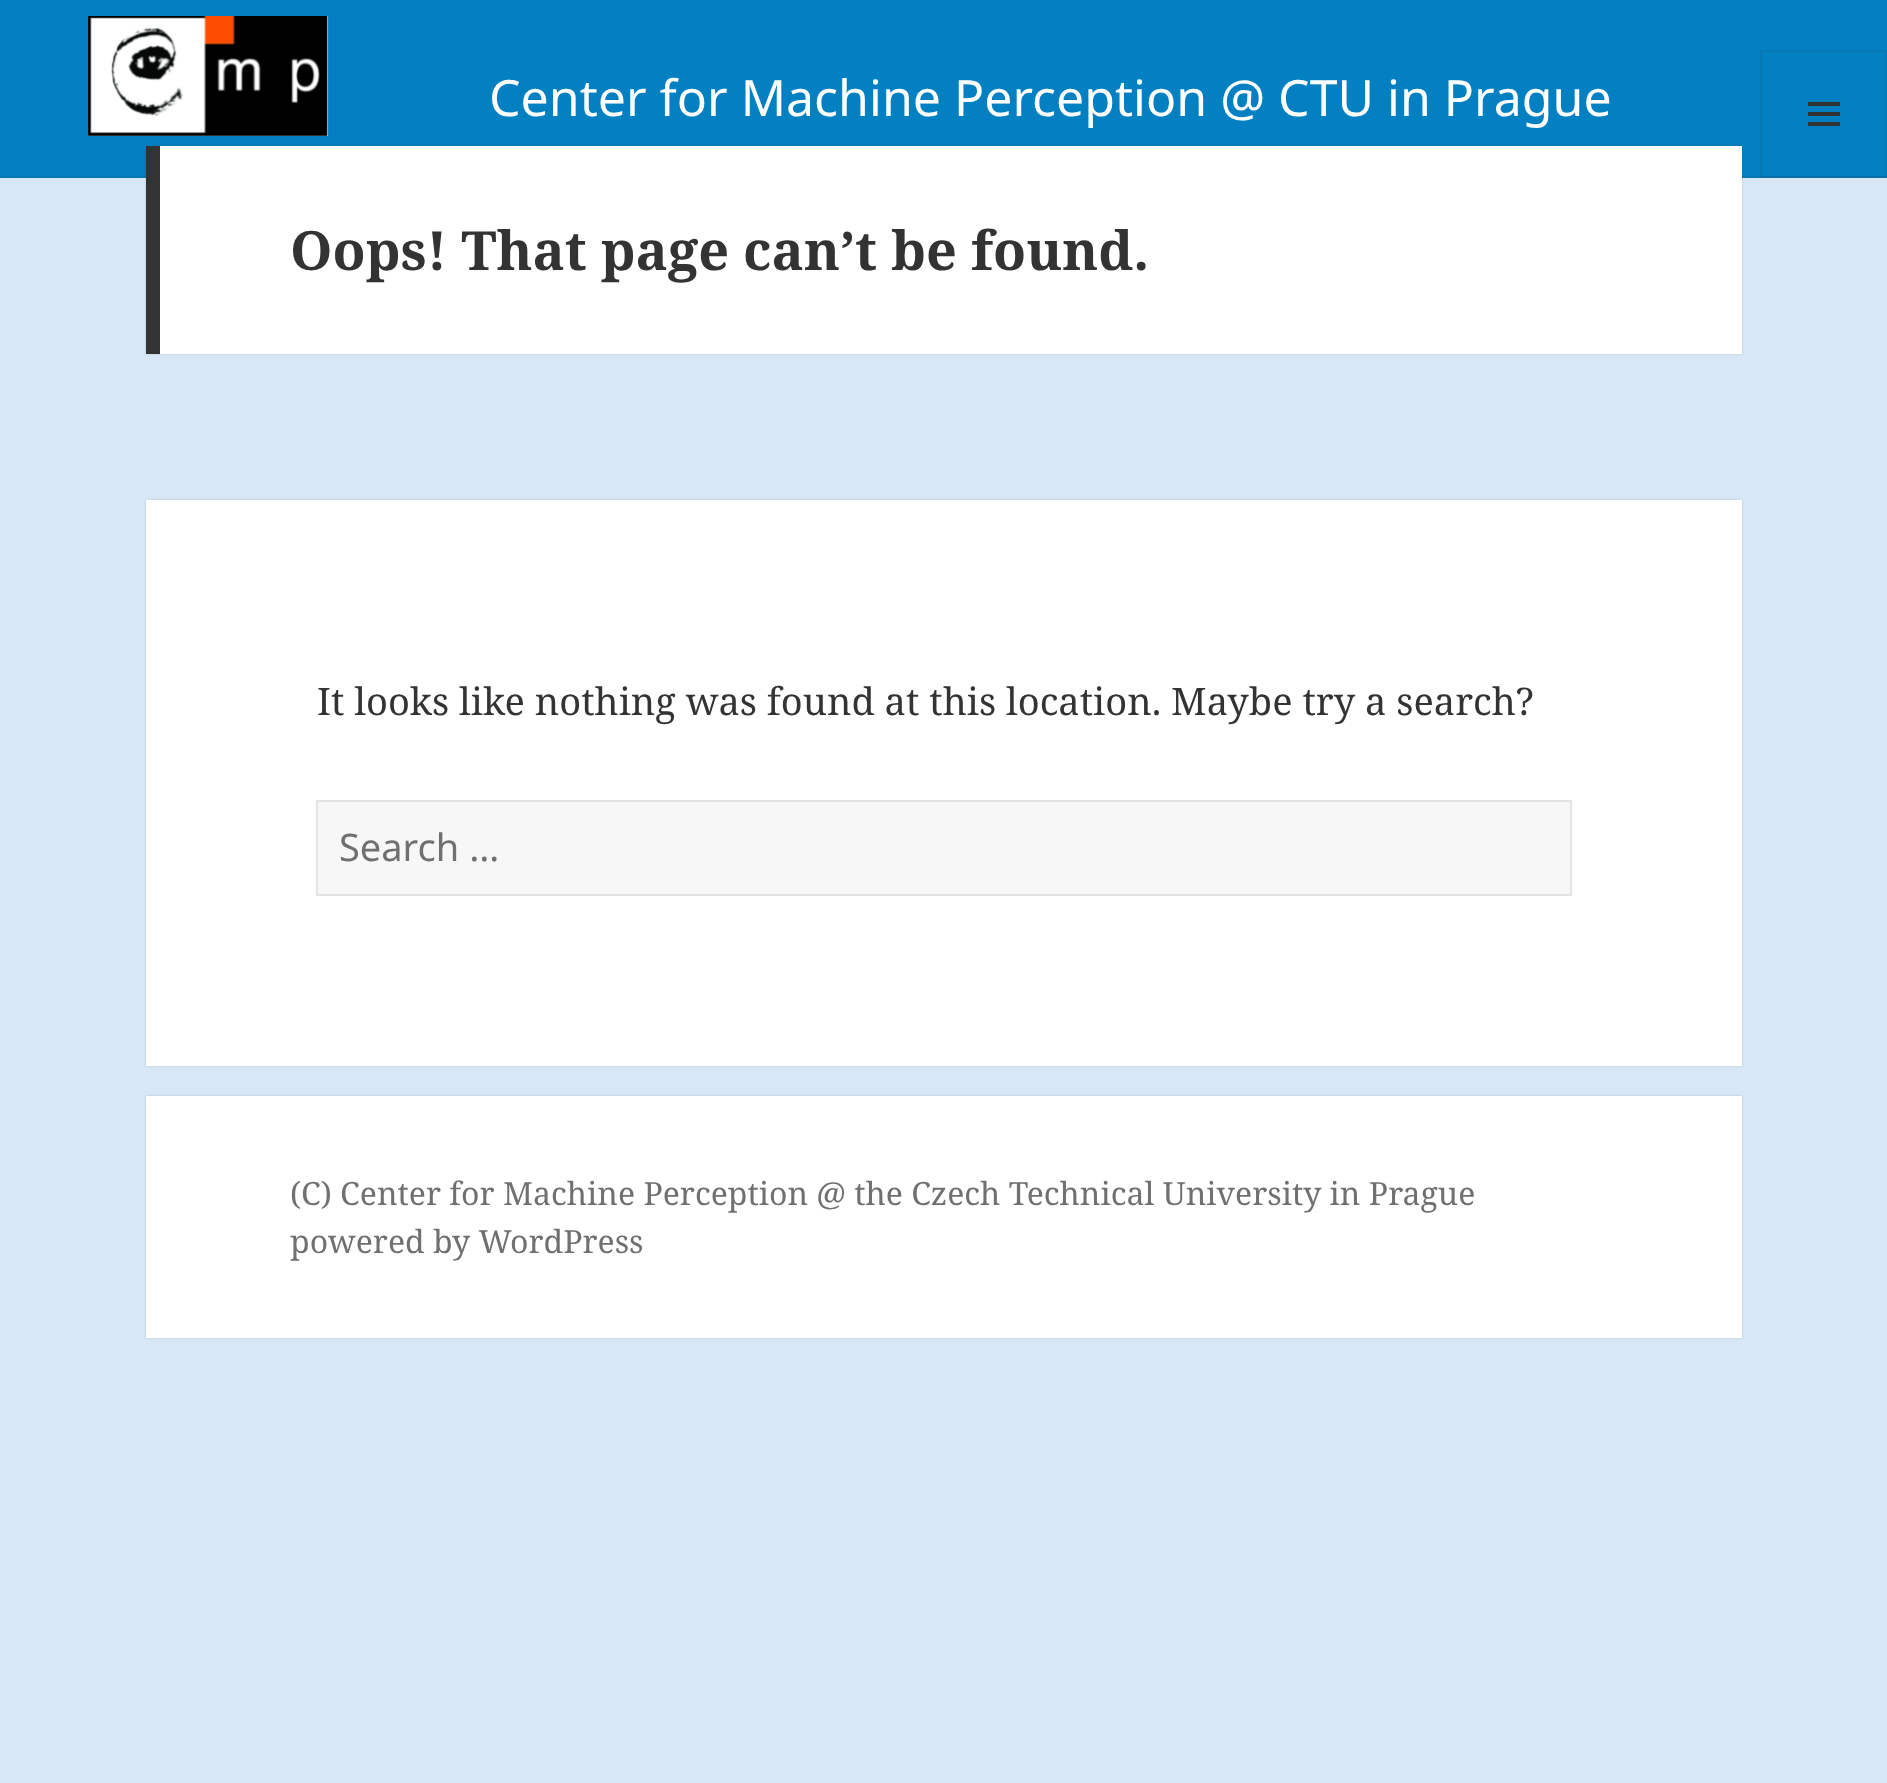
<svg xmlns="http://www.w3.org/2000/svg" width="1887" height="1783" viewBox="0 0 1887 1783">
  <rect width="100%" height="100%" fill="#d8e7f6"/>
  <path d="M0 0h1887v176H0z" fill="#0380c2"/>
  <path d="M0 176h1887v2H0z" fill="#0878b4"/>
  <image x="88" y="16" width="241" height="120" href="img/1.png"/>
  <path d="M1761 51h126v126H1761z" fill="none" stroke="#3333331a" stroke-width="2"/>
  <image x="1808" y="102" width="32" height="24" href="img/2.png"/>
  <path d="M146 146h1596v208H146z" fill="#00000026" filter="blur(1px)"/>
  <path d="M160 146h1582v208H160z" fill="#fff"/>
  <path d="M146 146h14v208H146z" fill="#333"/>
  <path d="M146 500h1596v566H146z" fill="#00000026" filter="blur(1px)"/>
  <path d="M146 500h1596v566H146z" fill="#fff"/>
  <path d="M317 801h1254v94H317z" fill="#f7f7f7" stroke="#e3e3e3" stroke-width="2"/>
  <path d="M146 1096h1596v242H146z" fill="#00000026" filter="blur(1px)"/>
  <path d="M146 1096h1596v242H146z" fill="#fff"/>
  <text x="489" y="116" font-family="Noto Sans" font-size="50" fill="#fff">Center for Machine Perception @ CTU in Prague</text>
  <text x="290" y="270" font-family="Noto Serif" font-size="54" font-weight="bold" fill="#333">Oops! That page can’t be found.</text>
  <text x="317" y="715" font-family="Noto Serif" font-size="38" fill="#333">It looks like nothing was found at this location. Maybe try a search?</text>
  <text x="339" y="861" font-family="Noto Sans" font-size="38" fill="#707070">Search …</text>
  <g font-family="Noto Serif" font-size="32" fill="#707070">
    <text x="290" y="1205">(C) Center for Machine Perception @ the Czech Technical University in Prague</text>
    <text x="290" y="1253">powered by WordPress</text>
  </g>
</svg>
